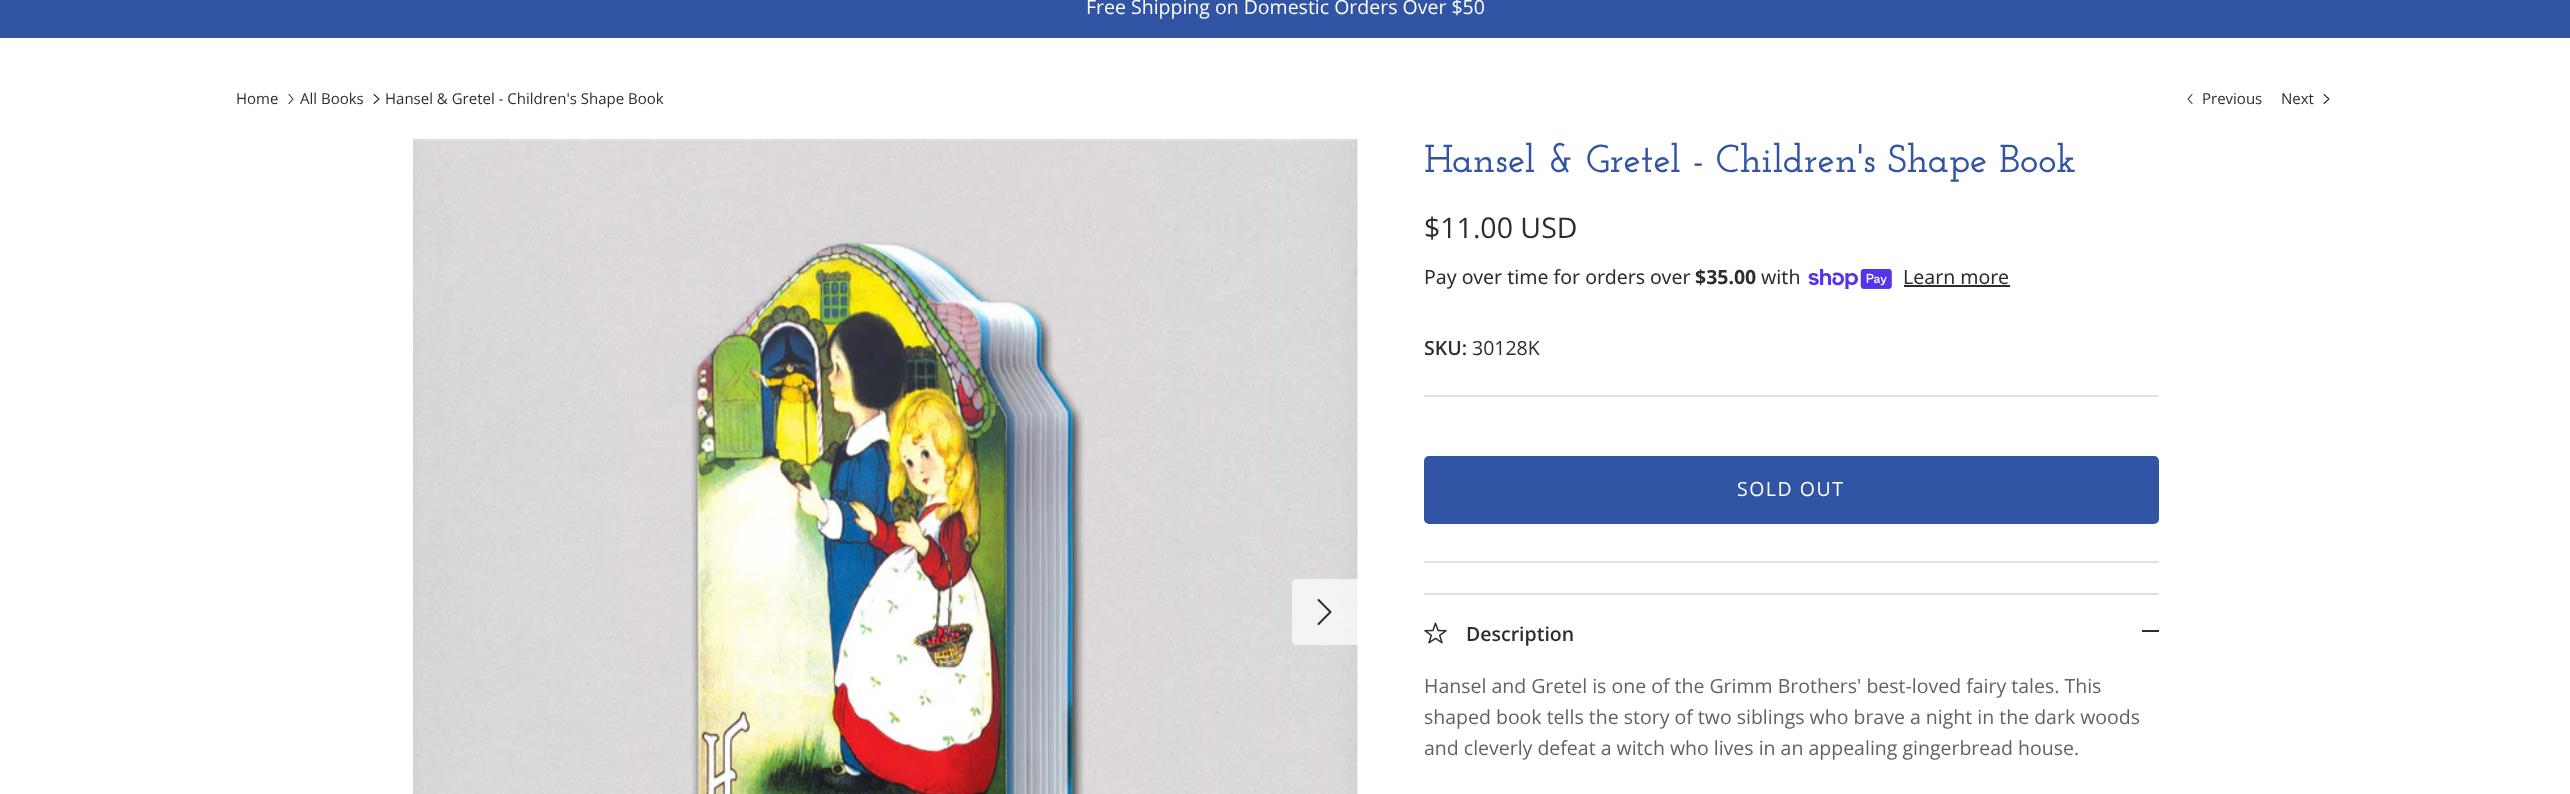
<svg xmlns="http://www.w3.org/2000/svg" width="2570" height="794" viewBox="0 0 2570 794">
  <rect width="100%" height="100%" fill="#fff"/>
  <path d="M0 0h2570v38H0z" fill="#3155a4"/>
  <path d="M289 103.5L293 99L289 94.5" fill="none" stroke="#2c2d2e" stroke-width="1.1" stroke-linecap="round" stroke-linejoin="round"/>
  <path d="M374 103.5L379 99L374 94.5" fill="none" stroke="#2c2d2e" stroke-width="1.1" stroke-linecap="round" stroke-linejoin="round"/>
  <path d="M2192 103.5L2188 99L2192 94.5" fill="none" stroke="#2c2d2e" stroke-width="1.1" stroke-linecap="round" stroke-linejoin="round"/>
  <path d="M2324 103.5L2329 99L2324 94.5" fill="none" stroke="#2c2d2e" stroke-width="1.1" stroke-linecap="round" stroke-linejoin="round"/>
  <image x="413" y="139" width="945" height="655" href="img/1.png"/>
  <path d="M1297 579H1358V645H1297C1294 645 1292 643 1292 640V584C1292 581 1294 579 1297 579Z" fill="#ffffffb3"/>
  <path d="M1318.5 624L1330.5 612L1318.5 600" fill="none" stroke="#2c2d2e" stroke-width="2" stroke-linecap="round" stroke-linejoin="round"/>
  <image x="1808" y="269" width="84" height="21" href="img/2.png"/>
  <path d="M1904 285h106v2H1904z" fill="#2c2d2e"/>
  <path d="M1424 395h735v2H1424z" fill="#e2e2e2"/>
  <rect x="1425" y="457" width="733" height="66" rx="4" fill="#3155a4" stroke="#3155a4" stroke-width="2"/>
  <path d="M1424 561h735v2H1424z" fill="#e2e2e2"/>
  <path d="M1424 593h735v2H1424z" fill="#dfe0e0"/>
  <image x="1424" y="622" width="23" height="22" href="img/3.png"/>
  <path d="M2142 630h17v2H2142z" fill="#2c2d2e"/>
  <text x="1086" y="14" font-family="Open Sans" font-size="19.5" fill="#fff">Free Shipping on Domestic Orders Over $50</text>
  <g font-family="Open Sans" font-size="15" fill="#2c2d2e">
    <text x="236" y="104">Home</text>
    <text x="300" y="104">All Books</text>
    <text x="385" y="104">Hansel &amp; Gretel - Children's Shape Book</text>
    <text x="2202" y="104">Previous</text>
    <text x="2281" y="104">Next</text>
  </g>
  <text x="1424" y="172" font-family="Josefin Slab" font-size="39" font-weight="600" fill="#3155a4">Hansel &amp; Gretel - Children's Shape Book</text>
  <text x="1424" y="238" font-family="Open Sans" font-size="28.5" fill="#2c2d2e">$11.00 USD</text>
  <text x="1424" y="284" font-family="Noto Sans" font-size="19.5" fill="#2c2d2e">Pay over time for orders over</text>
  <text x="1695" y="284" font-family="Noto Sans" font-size="19.5" font-weight="bold" fill="#2c2d2e">$35.00</text>
  <g font-family="Noto Sans" font-size="19.5" fill="#2c2d2e">
    <text x="1761" y="284">with</text>
    <text x="1903" y="284">Learn more</text>
  </g>
  <text x="1424" y="355" font-family="Open Sans" font-size="19.5" font-weight="600" fill="#2c2d2e">SKU:</text>
  <text x="1472" y="355" font-family="Open Sans" font-size="19.5" fill="#2c2d2e">30128K</text>
  <text x="1737" y="496" font-family="Open Sans" font-size="19.5" letter-spacing="1.5" fill="#fff">SOLD OUT</text>
  <text x="1466" y="641" font-family="Open Sans" font-size="19.5" font-weight="600" fill="#2c2d2e">Description</text>
  <g font-family="Open Sans" font-size="19.5" fill="#616262">
    <text x="1424" y="693">Hansel and Gretel is one of the Grimm Brothers' best-loved fairy tales. This</text>
    <text x="1424" y="724">shaped book tells the story of two siblings who brave a night in the dark woods</text>
    <text x="1424" y="755">and cleverly defeat a witch who lives in an appealing gingerbread house.</text>
  </g>
</svg>
